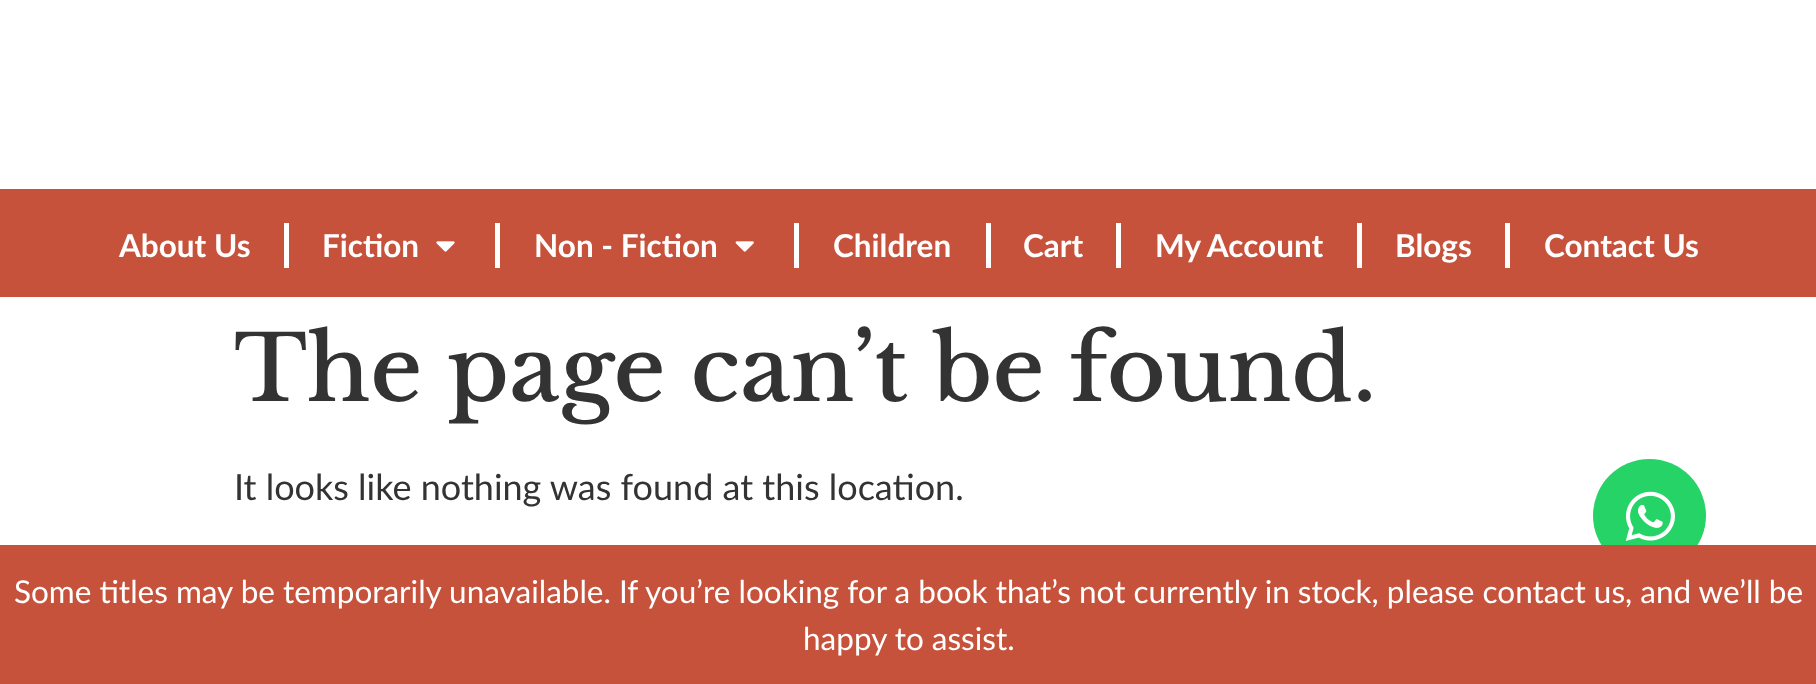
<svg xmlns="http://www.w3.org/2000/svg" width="1816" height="684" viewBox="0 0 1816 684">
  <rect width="100%" height="100%" fill="#fff"/>
  <path d="M0 189h1816v108H0z" fill="#c7523c"/>
  <path d="M284 223h5v45H284z" fill="#fff"/>
  <image x="436" y="241" width="19" height="11" href="img/1.png"/>
  <path d="M495 223h5v45H495z" fill="#fff"/>
  <image x="735" y="241" width="19" height="11" href="img/2.png"/>
  <path d="M794 223h5v45H794z" fill="#fff"/>
  <path d="M986 223h5v45H986z" fill="#fff"/>
  <path d="M1116 223h5v45H1116z" fill="#fff"/>
  <path d="M1357 223h5v45H1357z" fill="#fff"/>
  <path d="M1505 223h5v45H1505z" fill="#fff"/>
  <circle cx="1649.5" cy="515.5" r="56.5" fill="#25d366"/>
  <image x="1625" y="491" width="50" height="50" href="img/3.png"/>
  <path d="M0 545h1816v139H0z" fill="#c7523c"/>
  <g font-family="Lato" font-size="31.5" font-weight="bold" fill="#fff">
    <text x="119" y="257">About Us</text>
    <text x="322" y="257">Fiction</text>
    <text x="534" y="257">Non - Fiction</text>
    <text x="833" y="257">Children</text>
    <text x="1023" y="257">Cart</text>
    <text x="1155" y="257">My Account</text>
    <text x="1395" y="257">Blogs</text>
    <text x="1544" y="257">Contact Us</text>
  </g>
  <text x="234" y="401" font-family="Libre Baskerville" font-size="90" font-weight="500" fill="#333">The page can’t be found.</text>
  <text x="234" y="500" font-family="Lato" font-size="36" fill="#333">It looks like nothing was found at this location.</text>
  <g font-family="Lato" font-size="31.5" fill="#fff">
    <text x="14" y="603">Some titles may be temporarily unavailable. If you’re looking for a book that’s not currently in stock, please contact us, and we’ll be</text>
    <text x="803" y="650">happy to assist.</text>
  </g>
</svg>
